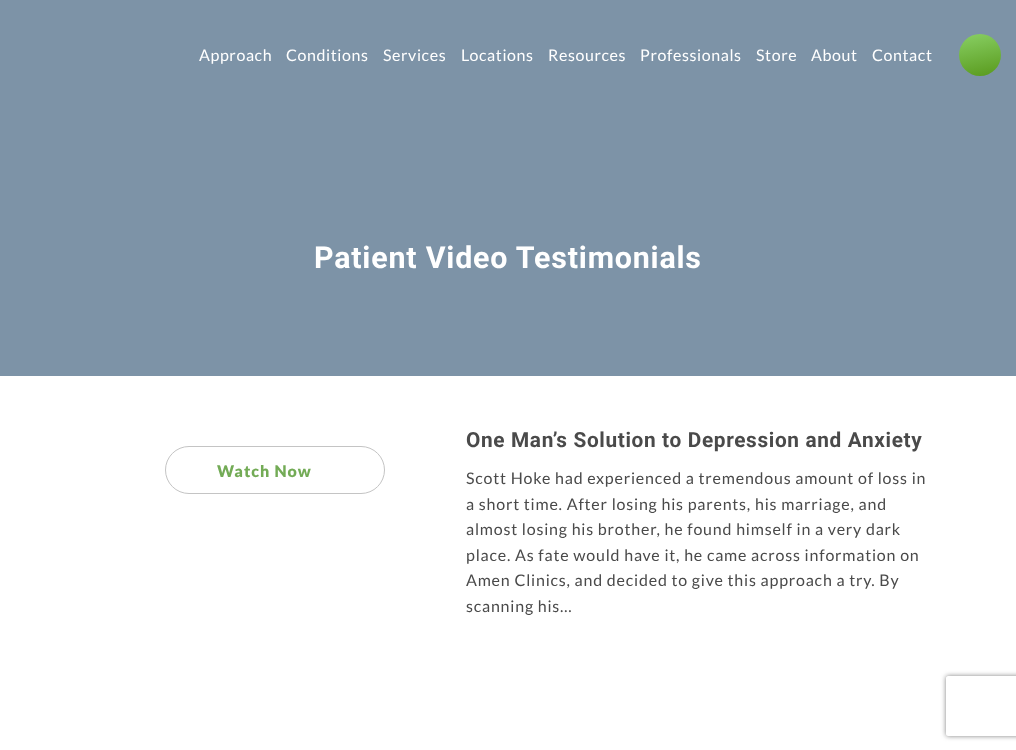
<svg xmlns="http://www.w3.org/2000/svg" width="1016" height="750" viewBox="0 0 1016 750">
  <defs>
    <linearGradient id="g1" gradientUnits="userSpaceOnUse" x1="975" y1="31" x2="985" y2="79"><stop offset="0" stop-color="#88cf63"/><stop offset="1" stop-color="#599a1d"/></linearGradient>
    <clipPath id="clip1"><path d="M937 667H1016V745H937ZM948 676H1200C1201 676 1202 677 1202 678V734C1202 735 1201 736 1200 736H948C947 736 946 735 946 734V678C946 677 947 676 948 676Z" clip-rule="evenodd"/></clipPath>
  </defs>
  <rect width="100%" height="100%" fill="#fff"/>
  <path d="M0 0h1016v376H0z" fill="#7d93a7"/>
  <circle cx="980" cy="55" r="21" fill="url(#g1)"/>
  <rect x="165.5" y="446.5" width="219" height="47" rx="23.5" fill="none" stroke="#c4c4c4"/>
  <g clip-path="url(#clip1)">
    <rect x="946" y="676" width="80" height="60" rx="2" fill="#808080" filter="blur(2.5px)"/>
  </g>
  <g font-family="Lato" font-size="16" letter-spacing="0.6" fill="#fff">
    <text x="199" y="61">Approach</text>
    <text x="286" y="61">Conditions</text>
    <text x="383" y="61">Services</text>
    <text x="461" y="61">Locations</text>
    <text x="548" y="61">Resources</text>
    <text x="640" y="61">Professionals</text>
    <text x="756" y="61">Store</text>
    <text x="811" y="61">About</text>
    <text x="872" y="61">Contact</text>
  </g>
  <text x="314" y="268" font-family="Roboto" font-size="30.4" font-weight="bold" letter-spacing="0.8" fill="#fff">Patient Video Testimonials</text>
  <text x="217" y="477" font-family="Lato" font-size="16" font-weight="900" letter-spacing="1" fill="#73ab56">Watch Now</text>
  <text x="466" y="447" font-family="Roboto" font-size="20.8" font-weight="bold" letter-spacing="0.65" fill="#4a4a4a">One Man’s Solution to Depression and Anxiety</text>
  <g font-family="Lato" font-size="16" letter-spacing="0.8" fill="#4a4a4a">
    <text x="466" y="484">Scott Hoke had experienced a tremendous amount of loss in</text>
    <text x="466" y="510">a short time. After losing his parents, his marriage, and</text>
    <text x="466" y="535">almost losing his brother, he found himself in a very dark</text>
    <text x="466" y="561">place. As fate would have it, he came across information on</text>
    <text x="466" y="586">Amen Clinics, and decided to give this approach a try. By</text>
    <text x="466" y="612">scanning his…</text>
  </g>
</svg>
